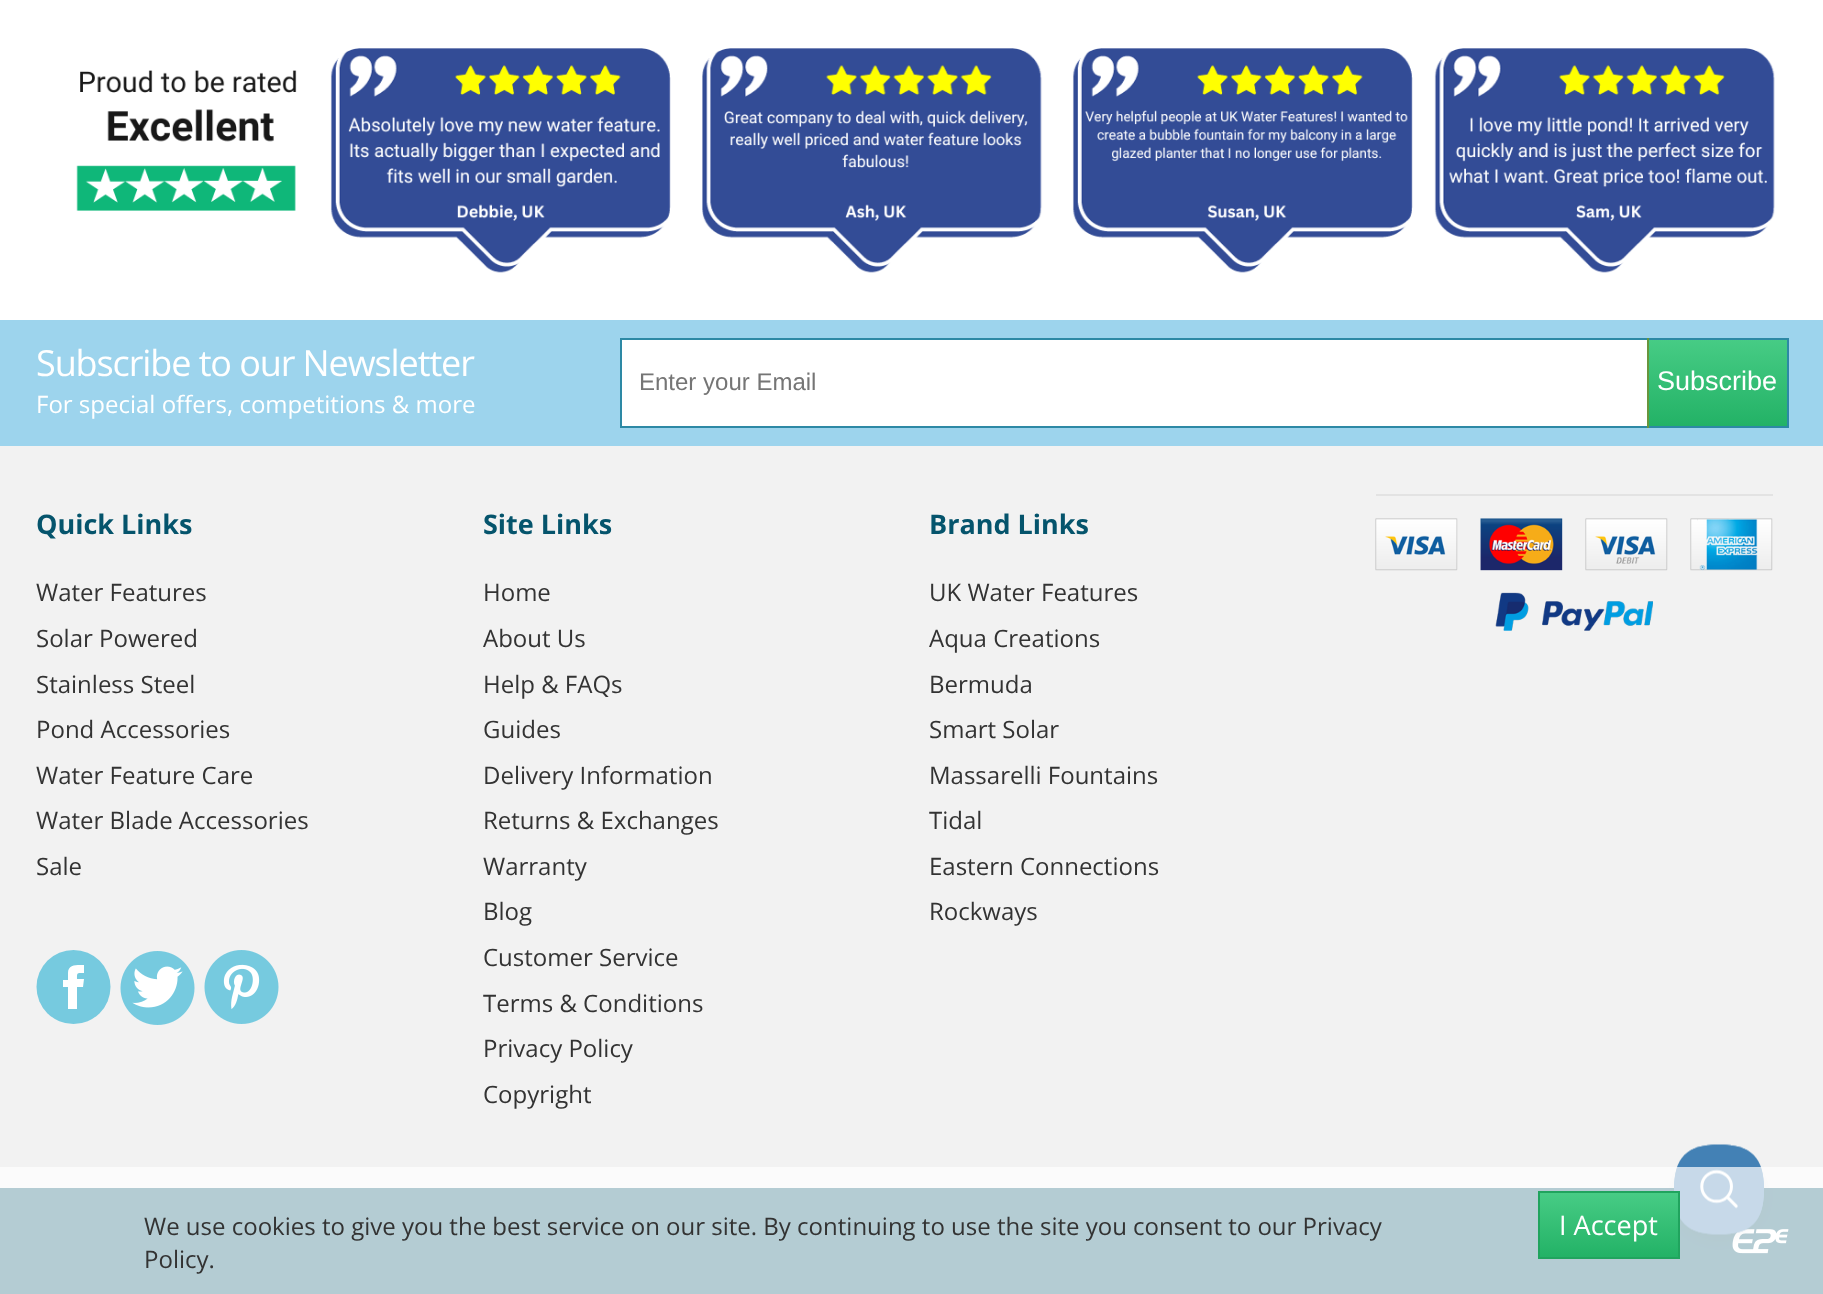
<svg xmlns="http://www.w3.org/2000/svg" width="1823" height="1294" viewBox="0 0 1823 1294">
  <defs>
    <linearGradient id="g1" gradientUnits="userSpaceOnUse" x1="1718" y1="339" x2="1718" y2="426"><stop offset="0" stop-color="#47cc85"/><stop offset="1" stop-color="#23b266"/></linearGradient>
    <linearGradient id="g2" gradientUnits="userSpaceOnUse" x1="1609" y1="1193" x2="1609" y2="1257"><stop offset="0" stop-color="#47cc85"/><stop offset="1" stop-color="#23b266"/></linearGradient>
  </defs>
  <rect width="100%" height="100%" fill="#fff"/>
  <image x="76" y="48" width="1699" height="225" href="img/1.png"/>
  <path d="M0 320h1823v126H0z" fill="#9dd4ed"/>
  <path d="M622 340h1025v86H622z" fill="#fff"/>
  <path d="M621 339h1166v88H621z" fill="none" stroke="#2d89a5" stroke-width="2"/>
  <path d="M1649 340h138v86H1649z" fill="url(#g1)"/>
  <path d="M1788 338h1v90H1788z" fill="#2d89a5"/>
  <path d="M1647 338h2v90H1647z" fill="#68963d"/>
  <path d="M0 446h1823v742H0z" fill="#f2f2f2"/>
  <circle cx="73.5" cy="987" r="37" fill="#76cadf"/>
  <path d="M68 973V980H63V987H68V1009H77V987H83L84 979H77C77 972 77 973 84 973V965C77 965 68 964 68 973Z" fill="#fff"/>
  <image x="120" y="951" width="75" height="74" href="img/2.png"/>
  <image x="204" y="950" width="75" height="74" href="img/3.png"/>
  <path d="M1376 494h397v2H1376z" fill="#e3e3e3"/>
  <image x="1375" y="518" width="398" height="113" href="img/4.png"/>
  <path d="M0 1188h1823v106H0z" fill="#05546c"/>
  <image x="1732" y="1229" width="57" height="25" href="img/6.png"/>
  <rect x="1674" y="1151" width="90" height="90" rx="45" fill="#0000001a" filter="blur(5px)"/>
  <image x="1674" y="1144" width="90" height="91" href="img/5.png"/>
  <path d="M0 1167h1823v127H0z" fill="#ffffffb3"/>
  <path d="M1540 1193h138v64H1540z" fill="url(#g2)"/>
  <path d="M1539 1192h140v66H1539z" fill="none" stroke="#20a45e" stroke-width="2"/>
  <text x="36" y="376" font-family="Open Sans" font-size="36" letter-spacing="-1.1" fill="#fff">Subscribe to our Newsletter</text>
  <text x="36" y="413" font-family="Open Sans" font-size="24" fill="#fff">For special offers, competitions &amp; more</text>
  <text x="639" y="390" font-family="Liberation Sans" font-size="24" fill="#757575">Enter your Email</text>
  <text x="1657" y="390" font-family="Liberation Sans" font-size="27" fill="#fff">Subscribe</text>
  <text x="36" y="534" font-family="Open Sans" font-size="27" font-weight="bold" fill="#05546c">Quick Links</text>
  <g font-family="Open Sans" font-size="24" fill="#333">
    <text x="36" y="601">Water Features</text>
    <text x="36" y="647">Solar Powered</text>
    <text x="36" y="693">Stainless Steel</text>
    <text x="36" y="738">Pond Accessories</text>
    <text x="36" y="784">Water Feature Care</text>
    <text x="36" y="829">Water Blade Accessories</text>
    <text x="36" y="875">Sale</text>
  </g>
  <text x="483" y="534" font-family="Open Sans" font-size="27" font-weight="bold" fill="#05546c">Site Links</text>
  <g font-family="Open Sans" font-size="24" fill="#333">
    <text x="483" y="601">Home</text>
    <text x="483" y="647">About Us</text>
    <text x="483" y="693">Help &amp; FAQs</text>
    <text x="483" y="738">Guides</text>
    <text x="483" y="784">Delivery Information</text>
    <text x="483" y="829">Returns &amp; Exchanges</text>
    <text x="483" y="875">Warranty</text>
    <text x="483" y="920">Blog</text>
    <text x="483" y="966">Customer Service</text>
    <text x="483" y="1012">Terms &amp; Conditions</text>
    <text x="483" y="1057">Privacy Policy</text>
    <text x="483" y="1103">Copyright</text>
  </g>
  <text x="929" y="534" font-family="Open Sans" font-size="27" font-weight="bold" fill="#05546c">Brand Links</text>
  <g font-family="Open Sans" font-size="24" fill="#333">
    <text x="929" y="601">UK Water Features</text>
    <text x="929" y="647">Aqua Creations</text>
    <text x="929" y="693">Bermuda</text>
    <text x="929" y="738">Smart Solar</text>
    <text x="929" y="784">Massarelli Fountains</text>
    <text x="929" y="829">Tidal</text>
    <text x="929" y="875">Eastern Connections</text>
    <text x="929" y="920">Rockways</text>
    <text x="144" y="1235">We use cookies to give you the best service on our site. By continuing to use the site you consent to our Privacy</text>
    <text x="144" y="1268">Policy.</text>
  </g>
  <text x="1559" y="1235" font-family="Open Sans" font-size="27" fill="#fff">I Accept</text>
</svg>
